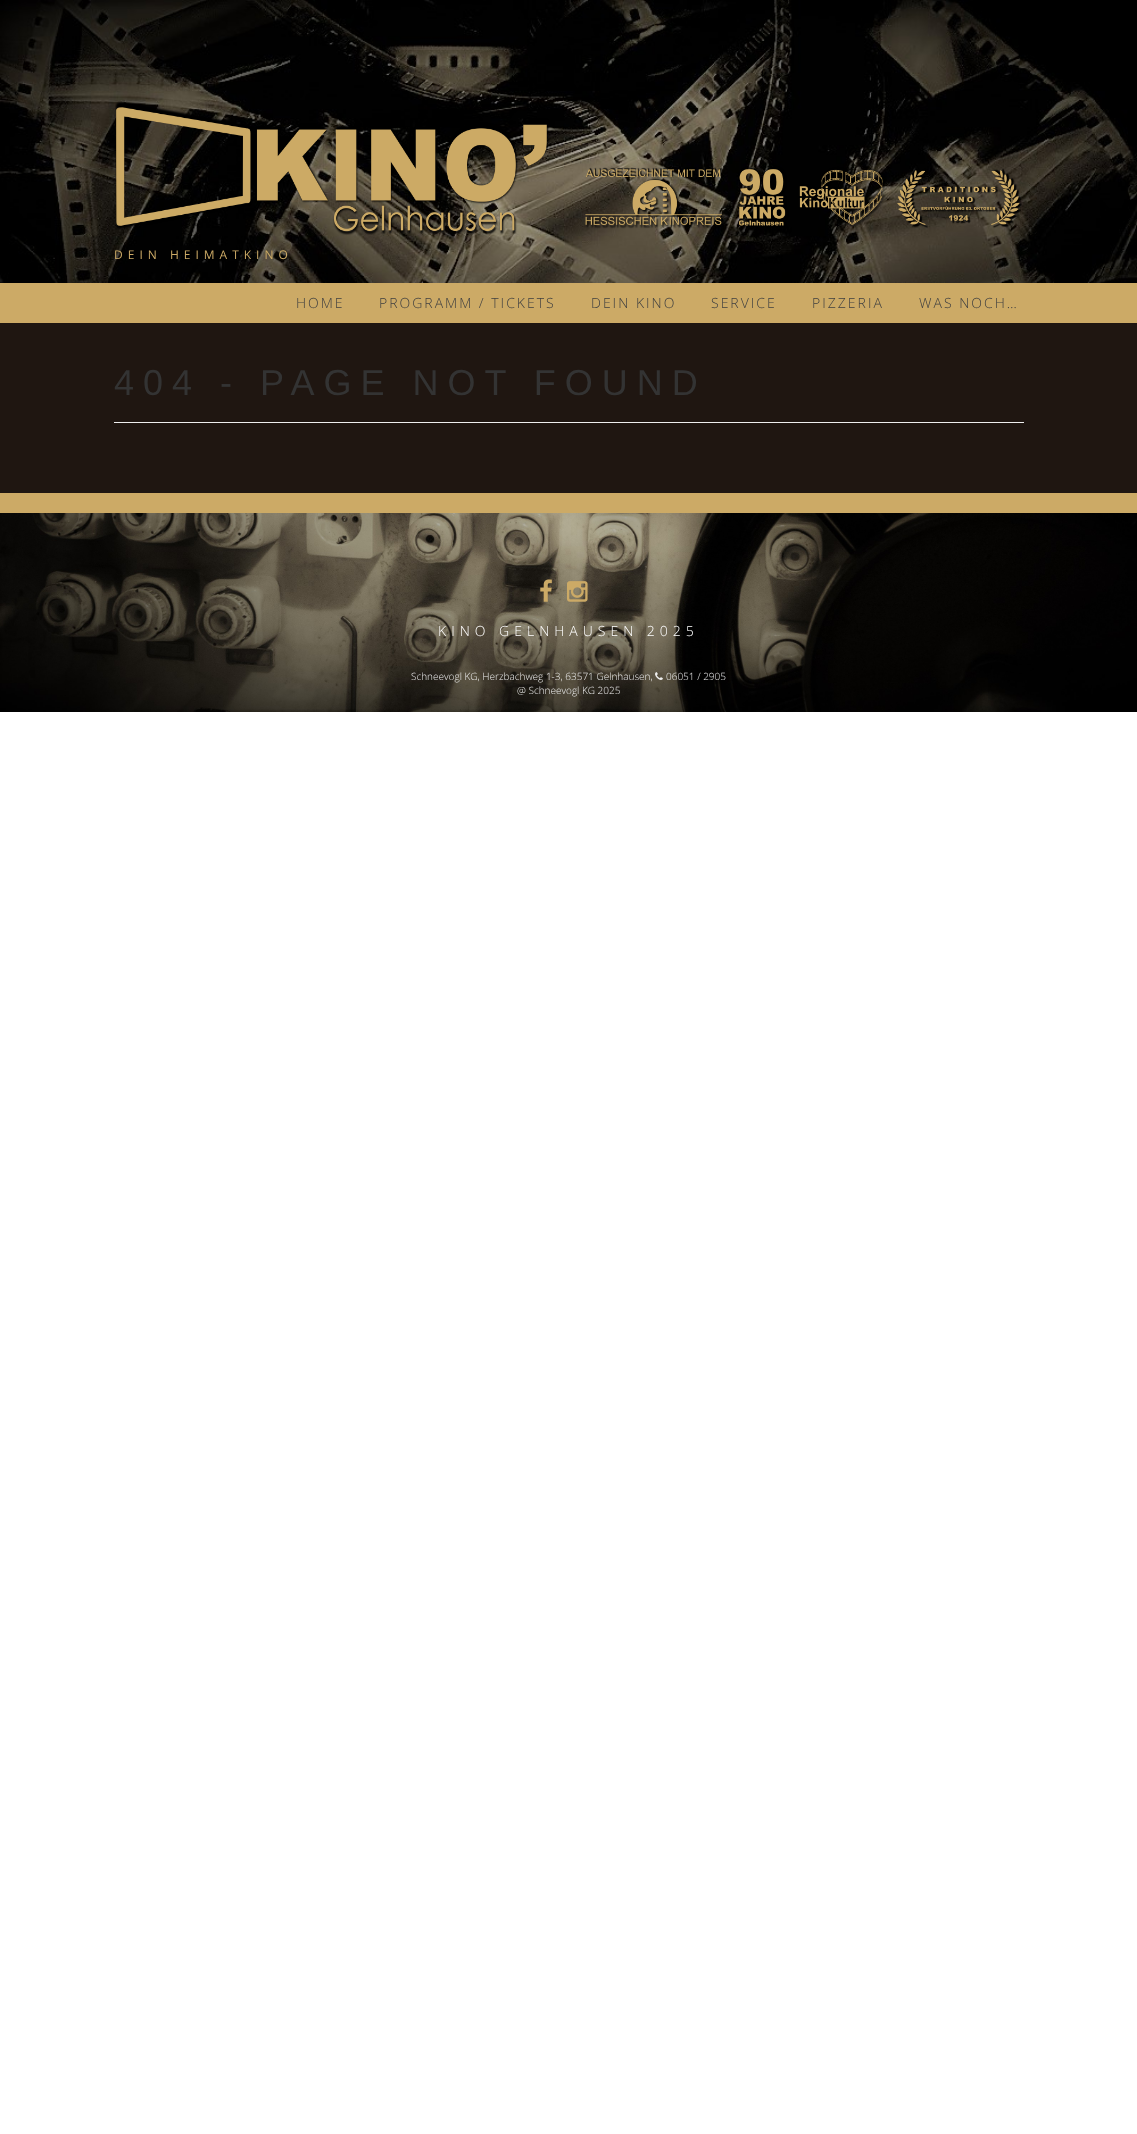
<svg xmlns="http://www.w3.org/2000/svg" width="1137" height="2134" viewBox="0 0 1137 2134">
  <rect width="100%" height="100%" fill="#fff"/>
  <path d="M0 323h1137v170H0z" fill="#1f1611"/>
  <image x="0" y="0" width="1137" height="283" href="img/1.png"/>
  <image x="115" y="101" width="907" height="134" href="img/2.png"/>
  <path d="M0 283h1137v40H0z" fill="#ca6"/>
  <path d="M114 422h910v1H114z" fill="#eee"/>
  <image x="0" y="513" width="1137" height="199" href="img/3.png"/>
  <path d="M0 493h1137v20H0z" fill="#ca6"/>
  <image x="540" y="579" width="12" height="23" href="img/4.png"/>
  <image x="567" y="581" width="21" height="21" href="img/5.png"/>
  <image x="655" y="672" width="8" height="8" href="img/6.png"/>
  <text x="114" y="259" font-family="Open Sans" font-size="12" letter-spacing="5" fill="#ca6">DEIN HEIMATKINO</text>
  <g font-family="Open Sans" font-size="14" font-weight="300" letter-spacing="2" fill="#404040">
    <text x="296" y="308">HOME</text>
    <text x="379" y="308">PROGRAMM / TICKETS</text>
    <text x="591" y="308">DEIN KINO</text>
    <text x="711" y="308">SERVICE</text>
    <text x="812" y="308">PIZZERIA</text>
    <text x="919" y="308">WAS NOCH…</text>
  </g>
  <text x="114" y="395" font-family="Liberation Sans" font-size="36" letter-spacing="9" fill="#333">404 - PAGE NOT FOUND</text>
  <text x="438" y="636" font-family="Open Sans" font-size="14" font-weight="300" letter-spacing="5" fill="#fff">KINO GELNHAUSEN 2025</text>
  <g font-family="Open Sans" font-size="10" font-weight="300" fill="#eee">
    <text x="411" y="680">Schneevogl KG, Herzbachweg 1-3, 63571 Gelnhausen,</text>
    <text x="666" y="680">06051 / 2905</text>
    <text x="517" y="694">@ Schneevogl KG 2025</text>
  </g>
</svg>
